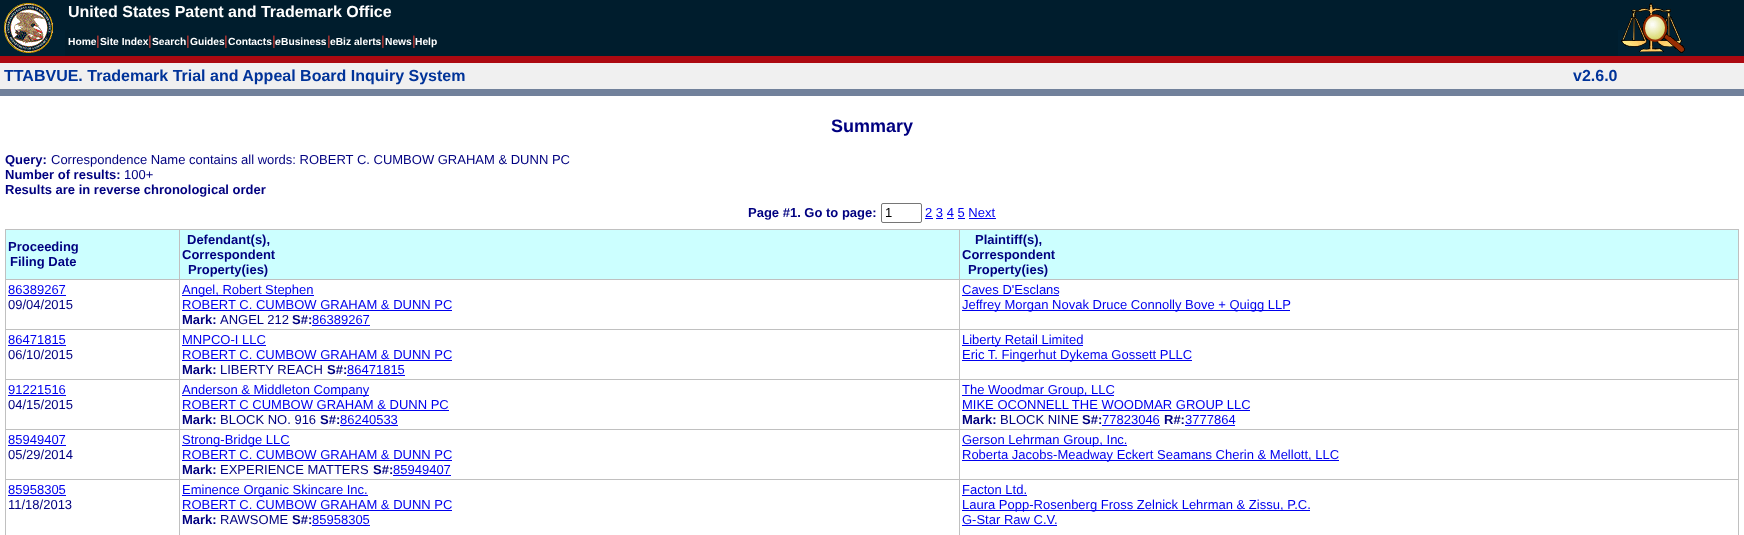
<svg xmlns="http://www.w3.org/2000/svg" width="1744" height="535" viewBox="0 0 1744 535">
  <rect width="100%" height="100%" fill="#fff"/>
  <path d="M0 0h1744v30H0z" fill="#001d2d"/>
  <path d="M0 30h1744v26H0z" fill="#002032"/>
  <image x="4" y="3" width="49" height="50" href="img/1.png"/>
  <image x="1621" y="3" width="64" height="50" href="img/2.png"/>
  <path d="M65 30h1553v26H65z" fill="#001d2d"/>
  <path d="M0 56h1744v7H0z" fill="#ac0911"/>
  <path d="M0 63h1744v26H0z" fill="#f0f0f0"/>
  <path d="M0 89h1744v7H0z" fill="#71819b"/>
  <rect x="881.5" y="203.5" width="40" height="19" rx="1.5" fill="none" stroke="#767676"/>
  <path d="M925 218h8v1H925z" fill="#00e"/>
  <path d="M936 218h7v1H936z" fill="#00e"/>
  <path d="M947 218h7v1H947z" fill="#00e"/>
  <path d="M958 218h7v1H958z" fill="#00e"/>
  <path d="M969 218h27v1H969z" fill="#00e"/>
  <path d="M5 229h1734v306H5z" fill="#c0c0c0"/>
  <path d="M6 230h173v49H6z" fill="#cff"/>
  <path d="M180 230h779v49H180z" fill="#cff"/>
  <path d="M960 230h778v49H960z" fill="#cff"/>
  <path d="M6 280h173v49H6z" fill="#fff"/>
  <path d="M8 295h58v1H8z" fill="#00e"/>
  <path d="M180 280h779v49H180z" fill="#fff"/>
  <path d="M182 295h132v1H182z" fill="#00e"/>
  <path d="M182 310h270v1H182z" fill="#00e"/>
  <path d="M312 325h58v1H312z" fill="#00e"/>
  <path d="M960 280h778v49H960z" fill="#fff"/>
  <path d="M962 295h97v1H962z" fill="#00e"/>
  <path d="M962 310h328v1H962z" fill="#00e"/>
  <path d="M6 330h173v49H6z" fill="#fff"/>
  <path d="M8 345h58v1H8z" fill="#00e"/>
  <path d="M180 330h779v49H180z" fill="#fff"/>
  <path d="M182 345h84v1H182z" fill="#00e"/>
  <path d="M182 360h270v1H182z" fill="#00e"/>
  <path d="M347 375h58v1H347z" fill="#00e"/>
  <path d="M960 330h778v49H960z" fill="#fff"/>
  <path d="M962 345h121v1H962z" fill="#00e"/>
  <path d="M962 360h230v1H962z" fill="#00e"/>
  <path d="M6 380h173v49H6z" fill="#fff"/>
  <path d="M8 395h58v1H8z" fill="#00e"/>
  <path d="M180 380h779v49H180z" fill="#fff"/>
  <path d="M182 395h187v1H182z" fill="#00e"/>
  <path d="M182 410h267v1H182z" fill="#00e"/>
  <path d="M340 425h58v1H340z" fill="#00e"/>
  <path d="M960 380h778v49H960z" fill="#fff"/>
  <path d="M962 395h152v1H962z" fill="#00e"/>
  <path d="M962 410h288v1H962z" fill="#00e"/>
  <path d="M1102 425h58v1H1102z" fill="#00e"/>
  <path d="M1185 425h50v1H1185z" fill="#00e"/>
  <path d="M6 430h173v49H6z" fill="#fff"/>
  <path d="M8 445h58v1H8z" fill="#00e"/>
  <path d="M180 430h779v49H180z" fill="#fff"/>
  <path d="M182 445h108v1H182z" fill="#00e"/>
  <path d="M182 460h270v1H182z" fill="#00e"/>
  <path d="M393 475h58v1H393z" fill="#00e"/>
  <path d="M960 430h778v49H960z" fill="#fff"/>
  <path d="M962 445h165v1H962z" fill="#00e"/>
  <path d="M962 460h377v1H962z" fill="#00e"/>
  <path d="M6 480h173v55H6z" fill="#fff"/>
  <path d="M8 495h58v1H8z" fill="#00e"/>
  <path d="M180 480h779v55H180z" fill="#fff"/>
  <path d="M182 495h186v1H182z" fill="#00e"/>
  <path d="M182 510h270v1H182z" fill="#00e"/>
  <path d="M312 525h58v1H312z" fill="#00e"/>
  <path d="M960 480h778v55H960z" fill="#fff"/>
  <path d="M962 495h65v1H962z" fill="#00e"/>
  <path d="M962 510h348v1H962z" fill="#00e"/>
  <path d="M962 525h95v1H962z" fill="#00e"/>
  <text x="68" y="17" font-family="Liberation Sans" font-size="16" font-weight="bold" fill="#fff">United States Patent and Trademark Office</text>
  <text x="68" y="45" font-family="Liberation Sans" font-size="10.25" font-weight="bold" fill="#fff">Home</text>
  <text x="96" y="45" font-family="Liberation Sans" font-size="13" font-weight="bold" fill="#933">|</text>
  <text x="100" y="45" font-family="Liberation Sans" font-size="10.25" font-weight="bold" fill="#fff">Site Index</text>
  <text x="148" y="45" font-family="Liberation Sans" font-size="13" font-weight="bold" fill="#933">|</text>
  <text x="152" y="45" font-family="Liberation Sans" font-size="10.25" font-weight="bold" fill="#fff">Search</text>
  <text x="186" y="45" font-family="Liberation Sans" font-size="13" font-weight="bold" fill="#933">|</text>
  <text x="190" y="45" font-family="Liberation Sans" font-size="10.25" font-weight="bold" fill="#fff">Guides</text>
  <text x="224" y="45" font-family="Liberation Sans" font-size="13" font-weight="bold" fill="#933">|</text>
  <text x="228" y="45" font-family="Liberation Sans" font-size="10.25" font-weight="bold" fill="#fff">Contacts</text>
  <text x="272" y="45" font-family="Liberation Sans" font-size="13" font-weight="bold" fill="#933">|</text>
  <text x="275" y="45" font-family="Liberation Sans" font-size="10.25" font-weight="bold" font-style="italic" fill="#fff">e</text>
  <text x="281" y="45" font-family="Liberation Sans" font-size="10.25" font-weight="bold" fill="#fff">Business</text>
  <text x="327" y="45" font-family="Liberation Sans" font-size="13" font-weight="bold" fill="#933">|</text>
  <text x="330" y="45" font-family="Liberation Sans" font-size="10.25" font-weight="bold" fill="#fff">eBiz alerts</text>
  <text x="381" y="45" font-family="Liberation Sans" font-size="13" font-weight="bold" fill="#933">|</text>
  <text x="385" y="45" font-family="Liberation Sans" font-size="10.25" font-weight="bold" fill="#fff">News</text>
  <text x="412" y="45" font-family="Liberation Sans" font-size="13" font-weight="bold" fill="#933">|</text>
  <text x="415" y="45" font-family="Liberation Sans" font-size="10.25" font-weight="bold" fill="#fff">Help</text>
  <g font-family="Liberation Sans" font-size="16" font-weight="bold" fill="#039">
    <text x="4" y="81">TTABVUE. Trademark Trial and Appeal Board Inquiry System</text>
    <text x="1573" y="81">v2.6.0</text>
  </g>
  <text x="831" y="132" font-family="Liberation Sans" font-size="18" font-weight="bold" fill="#000080">Summary</text>
  <text x="5" y="164" font-family="Liberation Sans" font-size="13" font-weight="bold" fill="#000080">Query:</text>
  <text x="51" y="164" font-family="Liberation Sans" font-size="13" fill="#000080">Correspondence Name contains all words: ROBERT C. CUMBOW GRAHAM &amp; DUNN PC</text>
  <text x="5" y="179" font-family="Liberation Sans" font-size="13" font-weight="bold" fill="#000080">Number of results:</text>
  <text x="124" y="179" font-family="Liberation Sans" font-size="13" fill="#000080">100+</text>
  <g font-family="Liberation Sans" font-size="13" font-weight="bold" fill="#000080">
    <text x="5" y="194">Results are in reverse chronological order</text>
    <text x="748" y="217">Page #1. Go to page:</text>
  </g>
  <text x="885" y="217" font-family="Liberation Sans" font-size="13" fill="#000">1</text>
  <text x="925" y="217" font-family="Liberation Sans" font-size="13" fill="#00e">2 3 4 5 Next</text>
  <g font-family="Liberation Sans" font-size="13" font-weight="bold" fill="#000080">
    <text x="8" y="251">Proceeding</text>
    <text x="10" y="266">Filing Date</text>
    <text x="187" y="244">Defendant(s),</text>
    <text x="182" y="259">Correspondent</text>
    <text x="188" y="274">Property(ies)</text>
    <text x="975" y="244">Plaintiff(s),</text>
    <text x="962" y="259">Correspondent</text>
    <text x="968" y="274">Property(ies)</text>
  </g>
  <text x="8" y="294" font-family="Liberation Sans" font-size="13" fill="#00e">86389267</text>
  <text x="8" y="309" font-family="Liberation Sans" font-size="13" fill="#000080">09/04/2015</text>
  <g font-family="Liberation Sans" font-size="13" fill="#00e">
    <text x="182" y="294">Angel, Robert Stephen</text>
    <text x="182" y="309">ROBERT C. CUMBOW GRAHAM &amp; DUNN PC</text>
  </g>
  <text x="182" y="324" font-family="Liberation Sans" font-size="13" font-weight="bold" fill="#000080">Mark:</text>
  <text x="220" y="324" font-family="Liberation Sans" font-size="13" fill="#000080">ANGEL 212</text>
  <text x="292" y="324" font-family="Liberation Sans" font-size="13" font-weight="bold" fill="#000080">S#:</text>
  <g font-family="Liberation Sans" font-size="13" fill="#00e">
    <text x="312" y="324">86389267</text>
    <text x="962" y="294">Caves D'Esclans</text>
    <text x="962" y="309">Jeffrey Morgan Novak Druce Connolly Bove + Quigg LLP</text>
    <text x="8" y="344">86471815</text>
  </g>
  <text x="8" y="359" font-family="Liberation Sans" font-size="13" fill="#000080">06/10/2015</text>
  <g font-family="Liberation Sans" font-size="13" fill="#00e">
    <text x="182" y="344">MNPCO-I LLC</text>
    <text x="182" y="359">ROBERT C. CUMBOW GRAHAM &amp; DUNN PC</text>
  </g>
  <text x="182" y="374" font-family="Liberation Sans" font-size="13" font-weight="bold" fill="#000080">Mark:</text>
  <text x="220" y="374" font-family="Liberation Sans" font-size="13" fill="#000080">LIBERTY REACH</text>
  <text x="327" y="374" font-family="Liberation Sans" font-size="13" font-weight="bold" fill="#000080">S#:</text>
  <g font-family="Liberation Sans" font-size="13" fill="#00e">
    <text x="347" y="374">86471815</text>
    <text x="962" y="344">Liberty Retail Limited</text>
    <text x="962" y="359">Eric T. Fingerhut Dykema Gossett PLLC</text>
    <text x="8" y="394">91221516</text>
  </g>
  <text x="8" y="409" font-family="Liberation Sans" font-size="13" fill="#000080">04/15/2015</text>
  <g font-family="Liberation Sans" font-size="13" fill="#00e">
    <text x="182" y="394">Anderson &amp; Middleton Company</text>
    <text x="182" y="409">ROBERT C CUMBOW GRAHAM &amp; DUNN PC</text>
  </g>
  <text x="182" y="424" font-family="Liberation Sans" font-size="13" font-weight="bold" fill="#000080">Mark:</text>
  <text x="220" y="424" font-family="Liberation Sans" font-size="13" fill="#000080">BLOCK NO. 916</text>
  <text x="320" y="424" font-family="Liberation Sans" font-size="13" font-weight="bold" fill="#000080">S#:</text>
  <g font-family="Liberation Sans" font-size="13" fill="#00e">
    <text x="340" y="424">86240533</text>
    <text x="962" y="394">The Woodmar Group, LLC</text>
    <text x="962" y="409">MIKE OCONNELL THE WOODMAR GROUP LLC</text>
  </g>
  <text x="962" y="424" font-family="Liberation Sans" font-size="13" font-weight="bold" fill="#000080">Mark:</text>
  <text x="1000" y="424" font-family="Liberation Sans" font-size="13" fill="#000080">BLOCK NINE</text>
  <text x="1082" y="424" font-family="Liberation Sans" font-size="13" font-weight="bold" fill="#000080">S#:</text>
  <text x="1102" y="424" font-family="Liberation Sans" font-size="13" fill="#00e">77823046</text>
  <text x="1164" y="424" font-family="Liberation Sans" font-size="13" font-weight="bold" fill="#000080">R#:</text>
  <g font-family="Liberation Sans" font-size="13" fill="#00e">
    <text x="1185" y="424">3777864</text>
    <text x="8" y="444">85949407</text>
  </g>
  <text x="8" y="459" font-family="Liberation Sans" font-size="13" fill="#000080">05/29/2014</text>
  <g font-family="Liberation Sans" font-size="13" fill="#00e">
    <text x="182" y="444">Strong-Bridge LLC</text>
    <text x="182" y="459">ROBERT C. CUMBOW GRAHAM &amp; DUNN PC</text>
  </g>
  <text x="182" y="474" font-family="Liberation Sans" font-size="13" font-weight="bold" fill="#000080">Mark:</text>
  <text x="220" y="474" font-family="Liberation Sans" font-size="13" fill="#000080">EXPERIENCE MATTERS</text>
  <text x="373" y="474" font-family="Liberation Sans" font-size="13" font-weight="bold" fill="#000080">S#:</text>
  <g font-family="Liberation Sans" font-size="13" fill="#00e">
    <text x="393" y="474">85949407</text>
    <text x="962" y="444">Gerson Lehrman Group, Inc.</text>
    <text x="962" y="459">Roberta Jacobs-Meadway Eckert Seamans Cherin &amp; Mellott, LLC</text>
    <text x="8" y="494">85958305</text>
  </g>
  <text x="8" y="509" font-family="Liberation Sans" font-size="13" fill="#000080">11/18/2013</text>
  <g font-family="Liberation Sans" font-size="13" fill="#00e">
    <text x="182" y="494">Eminence Organic Skincare Inc.</text>
    <text x="182" y="509">ROBERT C. CUMBOW GRAHAM &amp; DUNN PC</text>
  </g>
  <text x="182" y="524" font-family="Liberation Sans" font-size="13" font-weight="bold" fill="#000080">Mark:</text>
  <text x="220" y="524" font-family="Liberation Sans" font-size="13" fill="#000080">RAWSOME</text>
  <text x="292" y="524" font-family="Liberation Sans" font-size="13" font-weight="bold" fill="#000080">S#:</text>
  <g font-family="Liberation Sans" font-size="13" fill="#00e">
    <text x="312" y="524">85958305</text>
    <text x="962" y="494">Facton Ltd.</text>
    <text x="962" y="509">Laura Popp-Rosenberg Fross Zelnick Lehrman &amp; Zissu, P.C.</text>
    <text x="962" y="524">G-Star Raw C.V.</text>
  </g>
</svg>
